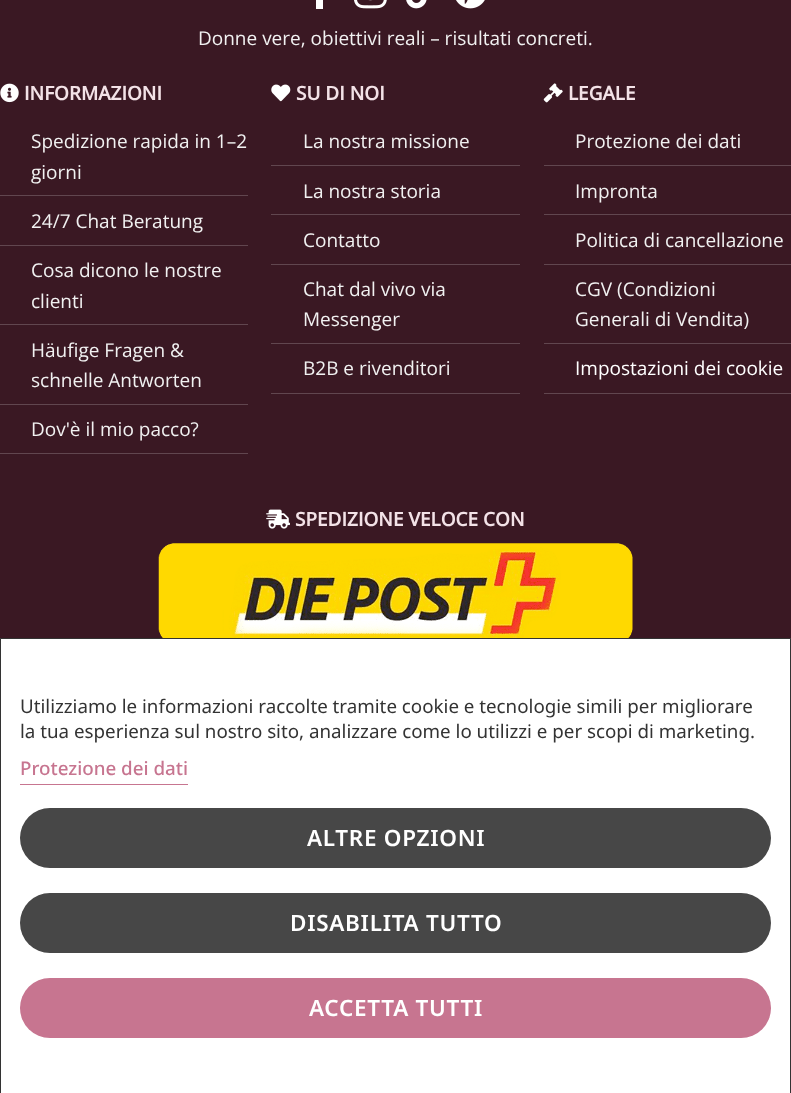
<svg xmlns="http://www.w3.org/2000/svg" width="791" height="1093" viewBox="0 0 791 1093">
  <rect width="100%" height="100%" fill="#3a1823"/>
  <path d="M316 0h7v9H316z" fill="#fff"/>
  <image x="354" y="0" width="33" height="9" href="img/1.png"/>
  <image x="406" y="0" width="21" height="9" href="img/2.png"/>
  <image x="456" y="0" width="29" height="9" href="img/3.png"/>
  <image x="0" y="83" width="19" height="20" href="img/4.png"/>
  <path d="M0 195h248v1H0z" fill="#61464f"/>
  <path d="M0 245h248v1H0z" fill="#61464f"/>
  <path d="M0 324h248v1H0z" fill="#61464f"/>
  <path d="M0 404h248v1H0z" fill="#61464f"/>
  <path d="M0 453h248v1H0z" fill="#61464f"/>
  <image x="271" y="84" width="20" height="18" href="img/5.png"/>
  <path d="M271 165h249v1H271z" fill="#61464f"/>
  <path d="M271 214h249v1H271z" fill="#61464f"/>
  <path d="M271 264h249v1H271z" fill="#61464f"/>
  <path d="M271 343h249v1H271z" fill="#61464f"/>
  <path d="M271 393h249v1H271z" fill="#61464f"/>
  <image x="543" y="83" width="20" height="20" href="img/6.png"/>
  <path d="M544 165h247v1H544z" fill="#61464f"/>
  <path d="M544 214h247v1H544z" fill="#61464f"/>
  <path d="M544 264h247v1H544z" fill="#61464f"/>
  <path d="M544 343h247v1H544z" fill="#61464f"/>
  <path d="M544 393h247v1H544z" fill="#61464f"/>
  <image x="266" y="509" width="24" height="20" href="img/7.png"/>
  <image x="158" y="543" width="475" height="95" href="img/8.png"/>
  <path d="M0.5 638.5h790v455H0.5z" fill="#fff" stroke="#333"/>
  <path d="M20 784h168v1H20z" fill="#c77590"/>
  <rect x="20" y="808" width="751" height="60" rx="30" fill="#474747"/>
  <rect x="20" y="893" width="751" height="60" rx="30" fill="#474747"/>
  <rect x="20" y="978" width="751" height="60" rx="30" fill="#c77590"/>
  <text x="198" y="45" font-family="Open Sans" font-size="19" fill="#f1f1f1">Donne vere, obiettivi reali – risultati concreti.</text>
  <text x="24" y="100" font-family="Open Sans" font-size="19" font-weight="bold" fill="#f3e2e7">INFORMAZIONI</text>
  <g font-family="Open Sans" font-size="19" fill="#f1f1f1">
    <text x="31" y="148">Spedizione rapida in 1–2</text>
    <text x="31" y="179">giorni</text>
    <text x="31" y="228">24/7 Chat Beratung</text>
    <text x="31" y="277">Cosa dicono le nostre</text>
    <text x="31" y="308">clienti</text>
    <text x="31" y="357">Häufige Fragen &amp;</text>
    <text x="31" y="387">schnelle Antworten</text>
    <text x="31" y="436">Dov'è il mio pacco?</text>
  </g>
  <text x="296" y="100" font-family="Open Sans" font-size="19" font-weight="bold" fill="#f3e2e7">SU DI NOI</text>
  <g font-family="Open Sans" font-size="19" fill="#f1f1f1">
    <text x="303" y="148">La nostra missione</text>
    <text x="303" y="198">La nostra storia</text>
    <text x="303" y="247">Contatto</text>
    <text x="303" y="296">Chat dal vivo via</text>
    <text x="303" y="326">Messenger</text>
    <text x="303" y="375">B2B e rivenditori</text>
  </g>
  <text x="568" y="100" font-family="Open Sans" font-size="19" font-weight="bold" fill="#f3e2e7">LEGALE</text>
  <g font-family="Open Sans" font-size="19" fill="#f1f1f1">
    <text x="575" y="148">Protezione dei dati</text>
    <text x="575" y="198">Impronta</text>
    <text x="575" y="247">Politica di cancellazione</text>
    <text x="575" y="296">CGV (Condizioni</text>
    <text x="575" y="326">Generali di Vendita)</text>
  </g>
  <text x="575" y="375" font-family="Open Sans" font-size="19" fill="#fff">Impostazioni dei cookie</text>
  <text x="295" y="526" font-family="Open Sans" font-size="19" font-weight="bold" fill="#f3e2e7">SPEDIZIONE VELOCE CON</text>
  <g font-family="Noto Sans" font-size="18.75" fill="#333">
    <text x="20" y="713">Utilizziamo le informazioni raccolte tramite cookie e tecnologie simili per migliorare</text>
    <text x="20" y="738">la tua esperienza sul nostro sito, analizzare come lo utilizzi e per scopi di marketing.</text>
  </g>
  <text x="20" y="775" font-family="Noto Sans" font-size="18.75" font-weight="500" fill="#c77590">Protezione dei dati</text>
  <g font-family="Noto Sans" font-size="22.5" font-weight="600" letter-spacing="0.7" fill="#fff">
    <text x="307" y="846">ALTRE OPZIONI</text>
    <text x="290" y="931">DISABILITA TUTTO</text>
    <text x="309" y="1016">ACCETTA TUTTI</text>
  </g>
</svg>
